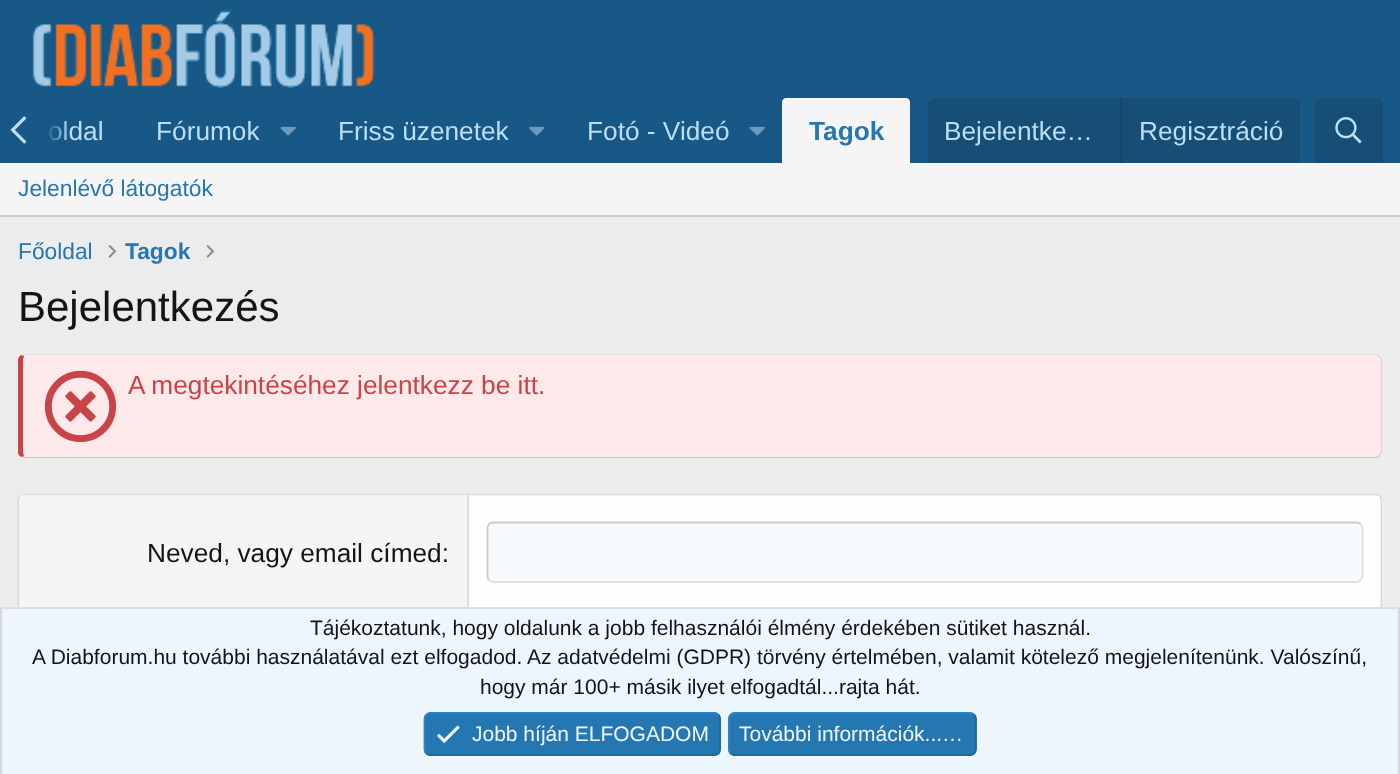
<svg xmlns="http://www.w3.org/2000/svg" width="1400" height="774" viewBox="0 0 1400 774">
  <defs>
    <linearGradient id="g1" gradientUnits="userSpaceOnUse" x1="0" y1="130" x2="70" y2="130"><stop offset="0.66" stop-color="#185886"/><stop offset="1" stop-color="#185886" stop-opacity="0"/></linearGradient>
  </defs>
  <rect width="100%" height="100%" fill="#ececec"/>
  <path d="M0 0h1400v98H0z" fill="#185886"/>
  <image x="32" y="10" width="343" height="78" href="img/1.png"/>
  <path d="M46 98h1354v65H46z" fill="#185886"/>
  <image x="280" y="126" width="16" height="10" href="img/3.png"/>
  <image x="529" y="126" width="16" height="10" href="img/4.png"/>
  <image x="749" y="126" width="16" height="10" href="img/3.png"/>
  <path d="M786 98H906C908 98 910 100 910 102V163H782V102C782 100 784 98 786 98Z" fill="#f5f5f5"/>
  <path d="M935 98H1293C1297 98 1300 101 1300 105V163H928V105C928 101 931 98 935 98Z" fill="#174e75"/>
  <path d="M1120 98h2v65H1120z" fill="#174566"/>
  <path d="M1321 98H1376C1380 98 1383 101 1383 105V163H1314V105C1314 101 1317 98 1321 98Z" fill="#174e75"/>
  <image x="1335" y="117" width="27" height="27" href="img/5.png"/>
  <path d="M0 163h1400v52H0z" fill="#f5f5f5"/>
  <path d="M0 215h1400v2H0z" fill="#cbcbcb"/>
  <image x="108" y="245" width="9" height="13" href="img/6.png"/>
  <image x="206" y="245" width="9" height="13" href="img/6.png"/>
  <path d="M24 355H1376C1378 355 1381 358 1381 360V452C1381 454 1378 457 1376 457H24C24 457 23 454 23 452V360C23 358 24 355 24 355Z" fill="#fde9e9"/>
  <path d="M24 354L21 355L24 356V355H1376L1379 357L1380 356C1379 355 1378 354 1376 354Z" fill="#dfdfdf"/>
  <path d="M1380 356L1382 359V453L1380 456L1379 455L1381 452V360L1379 357Z" fill="#d8d8d8"/>
  <path d="M1380 456C1379 457 1378 458 1376 458H24L21 457L24 456V457H1376L1379 455Z" fill="#cbcbcb"/>
  <path d="M21 355C19 356 18 358 18 360V452C18 454 19 456 21 457L24 456L23 452V360L24 356Z" fill="#c84448"/>
  <image x="44" y="370" width="73" height="72" href="img/7.png"/>
  <rect x="18" y="494" width="1365" height="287" rx="7" fill="#fefefe"/>
  <path d="M20 496C21.5 495 23 494.5 24.5 494.5H1375.5C1377 494.5 1378.5 495 1380 496" fill="none" stroke="#dfdfdf" stroke-width="1.8"/>
  <path d="M1380 496C1381 497.5 1381.5 499 1381.5 500.5V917C1381.5 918.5 1381 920 1380 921.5" fill="none" stroke="#d8d8d8" stroke-width="1.8"/>
  <path d="M20 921.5C19 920 18.5 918.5 18.5 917V500.5C18.5 499 19 497.5 20 496" fill="none" stroke="#d8d8d8" stroke-width="1.8"/>
  <path d="M24 495H469V609H19V500C19 497 21 495 24 495Z" fill="#f5f5f5"/>
  <path d="M467 495h2v114H467z" fill="#dfdfdf"/>
  <rect x="487" y="522" width="876" height="61" rx="7" fill="#f7fbfe"/>
  <path d="M1360.5 524C1361.5 525.5 1362.5 527 1362.5 528.5V576C1362.5 577.5 1361.5 579 1360.5 580C1359.5 581 1358 582 1356 582H493.5C492 582 490.5 581 489 580" fill="none" stroke="#dfdfdf" stroke-width="1.8"/>
  <path d="M489 580C488 579 487.5 577.5 487.5 576V528.5C487.5 527 488 525.5 489 524C490.5 523 492 522.5 493.5 522.5H1356C1358 522.5 1359.5 523 1360.5 524" fill="none" stroke="#cbcbcb" stroke-width="1.8"/>
  <path d="M2 609h1396v165H2z" fill="#edf6fd"/>
  <path d="M0 607h1400v2H0z" fill="#dfdfdf"/>
  <path d="M1398 607h2v167H1398z" fill="#d8d8d8"/>
  <path d="M0 607h2v167H0z" fill="#d8d8d8"/>
  <rect x="424" y="712" width="297" height="44" rx="7" fill="#2577b1"/>
  <path d="M718.5 715C719.5 716 720 717.5 720 719V749C720 750.5 719.5 752 718.5 753.5C717 754.5 715.5 755 714 755H430.5C429 755 427.5 754.5 426 753.5" fill="none" stroke="#21699c" stroke-width="1.8"/>
  <path d="M426 753.5C425 752 424.5 750.5 424.5 749V719C424.5 717.5 425 716 426 715C427.5 714 429 713 430.5 713H714C715.5 713 717 714 718.5 715" fill="none" stroke="#2985c6" stroke-width="1.8"/>
  <image x="437" y="725" width="23" height="18" href="img/8.png"/>
  <rect x="728" y="712" width="249" height="44" rx="7" fill="#2577b1"/>
  <path d="M974 715C975 716 975.5 717.5 975.5 719V749C975.5 750.5 975 752 974 753.5C972.5 754.5 971 755 969.5 755H735C733.5 755 732 754.5 730.5 753.5" fill="none" stroke="#21699c" stroke-width="1.8"/>
  <path d="M730.5 753.5C729.5 752 729 750.5 729 749V719C729 717.5 729.5 716 730.5 715C732 714 733.5 713 735 713H969.5C971 713 972.5 714 974 715" fill="none" stroke="#2985c6" stroke-width="1.8"/>
  <text x="48" y="140" font-family="Liberation Sans" font-size="26.25" fill="#bcdef5">oldal</text>
  <path d="M0 98h67v65H0z" fill="url(#g1)"/>
  <image x="10" y="116" width="17" height="28" href="img/2.png"/>
  <g font-family="Liberation Sans" font-size="26.25" fill="#bcdef5">
    <text x="156" y="140">Fórumok</text>
    <text x="338" y="140">Friss üzenetek</text>
    <text x="587" y="140">Fotó - Videó</text>
  </g>
  <text x="809" y="140" font-family="Liberation Sans" font-size="26.25" font-weight="bold" fill="#2577b1">Tagok</text>
  <g font-family="Liberation Sans" font-size="26.25" fill="#bcdef5">
    <text x="944" y="140">Bejelentke…</text>
    <text x="1139" y="140">Regisztráció</text>
  </g>
  <g font-family="Liberation Sans" font-size="22.75" fill="#2577b1">
    <text x="18" y="196">Jelenlévő látogatók</text>
    <text x="18" y="259">Főoldal</text>
  </g>
  <text x="125" y="259" font-family="Liberation Sans" font-size="22.75" font-weight="bold" fill="#2577b1">Tagok</text>
  <text x="18" y="321" font-family="Liberation Sans" font-size="42" fill="#141414">Bejelentkezés</text>
  <text x="128" y="394" font-family="Liberation Sans" font-size="26.25" fill="#c84448">A megtekintéséhez jelentkezz be itt.</text>
  <text x="147" y="562" font-family="Liberation Sans" font-size="26.25" fill="#141414">Neved, vagy email címed:</text>
  <g font-family="Liberation Sans" font-size="21" fill="#141414">
    <text x="310" y="635">Tájékoztatunk, hogy oldalunk a jobb felhasználói élmény érdekében sütiket használ.</text>
    <text x="32" y="664">A Diabforum.hu további használatával ezt elfogadod. Az adatvédelmi (GDPR) törvény értelmében, valamit kötelező megjelenítenünk. Valószínű,</text>
    <text x="480" y="694">hogy már 100+ másik ilyet elfogadtál...rajta hát.</text>
  </g>
  <g font-family="Liberation Sans" font-size="21" fill="#edf6fd">
    <text x="472" y="741">Jobb híján ELFOGADOM</text>
    <text x="739" y="741">További információk...…</text>
  </g>
</svg>
